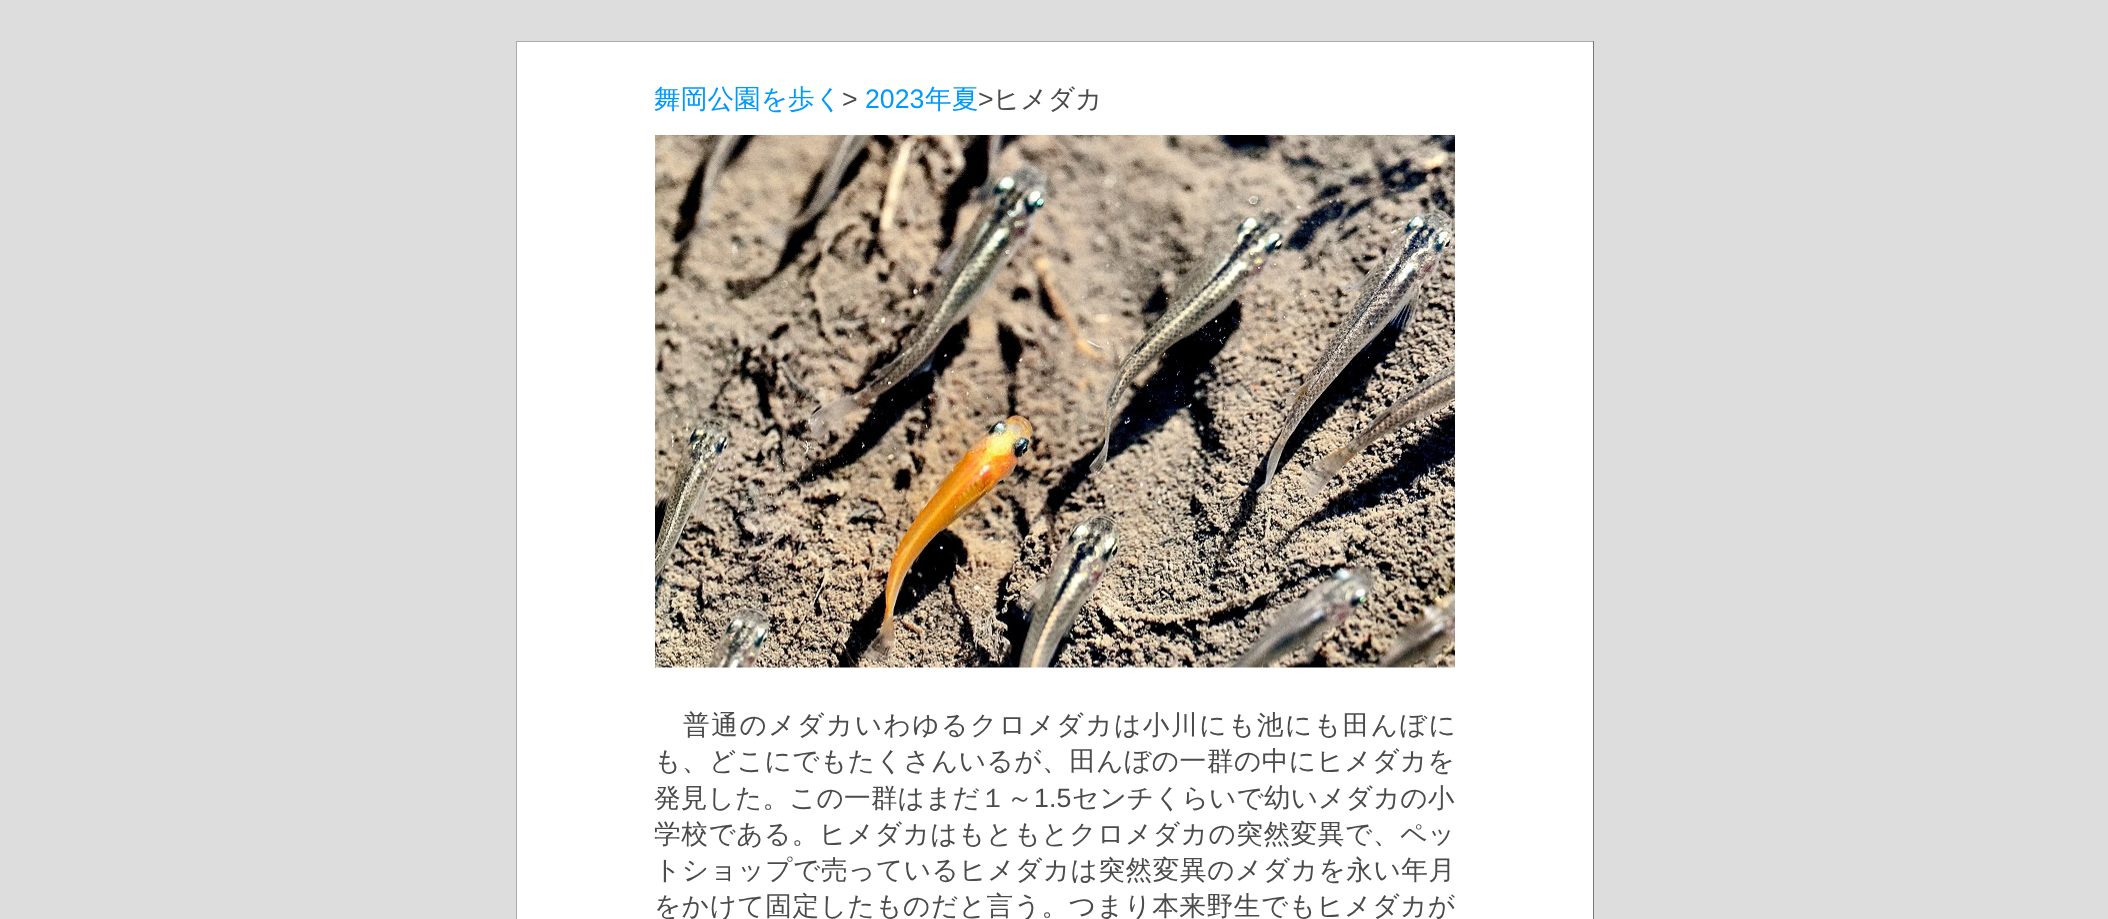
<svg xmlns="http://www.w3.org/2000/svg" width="2108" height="919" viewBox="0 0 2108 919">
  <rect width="100%" height="100%" fill="#ddd"/>
  <path d="M517 42h1076v877H517z" fill="#fff"/>
  <path d="M516 41h1078v1H516z" fill="#aaa"/>
  <path d="M1593 41h1v878H1593z" fill="#777"/>
  <path d="M516 41h1v878H516z" fill="#aaa"/>
  <image x="655" y="135" width="800" height="533" href="img/1.png"/>
  <text x="654" y="108" font-family="WenQuanYi Zen Hei" font-size="26.7" font-weight="500" fill="#09f">舞岡公園を歩く</text>
  <text x="842" y="108" font-family="Liberation Sans" font-size="26.7" fill="#4b4b4b">&gt;</text>
  <text x="865" y="108" font-family="Liberation Sans" font-size="26.7" fill="#09f">2023</text>
  <text x="925" y="108" font-family="WenQuanYi Zen Hei" font-size="26.7" font-weight="500" fill="#09f">年夏</text>
  <text x="978" y="108" font-family="Liberation Sans" font-size="26.7" fill="#4b4b4b">&gt;</text>
  <text x="993" y="108" font-family="WenQuanYi Zen Hei" font-size="26.7" font-weight="500" fill="#4b4b4b">ヒメダカ</text>
  <text x="683" y="734" font-family="WenQuanYi Zen Hei" font-size="26.7" font-weight="500" letter-spacing="1.5" fill="#4b4b4b">普通のメダカいわゆるクロメダカは小川にも池にも田んぼに</text>
  <text x="654" y="770" font-family="WenQuanYi Zen Hei" font-size="26.7" font-weight="500" letter-spacing="0.45" fill="#4b4b4b">も、どこにでもたくさんいるが、田んぼの一群の中にヒメダカを</text>
  <text x="654" y="807" font-family="WenQuanYi Zen Hei" font-size="26.7" font-weight="500" letter-spacing="0.1" fill="#4b4b4b">発見した。この一群はまだ１～</text>
  <text x="1034" y="807" font-family="Liberation Sans" font-size="26.7" letter-spacing="0.1" fill="#4b4b4b">1.5</text>
  <text x="1072" y="807" font-family="WenQuanYi Zen Hei" font-size="26.7" font-weight="500" letter-spacing="0.1" fill="#4b4b4b">センチくらいで幼いメダカの小</text>
  <g font-family="WenQuanYi Zen Hei" font-size="26.7" font-weight="500" letter-spacing="0.5" fill="#4b4b4b">
    <text x="654" y="843">学校である。ヒメダカはもともとクロメダカの突然変異で、ペッ</text>
    <text x="654" y="879">トショップで売っているヒメダカは突然変異のメダカを永い年月</text>
    <text x="654" y="915">をかけて固定したものだと言う。つまり本来野生でもヒメダカが</text>
  </g>
</svg>
